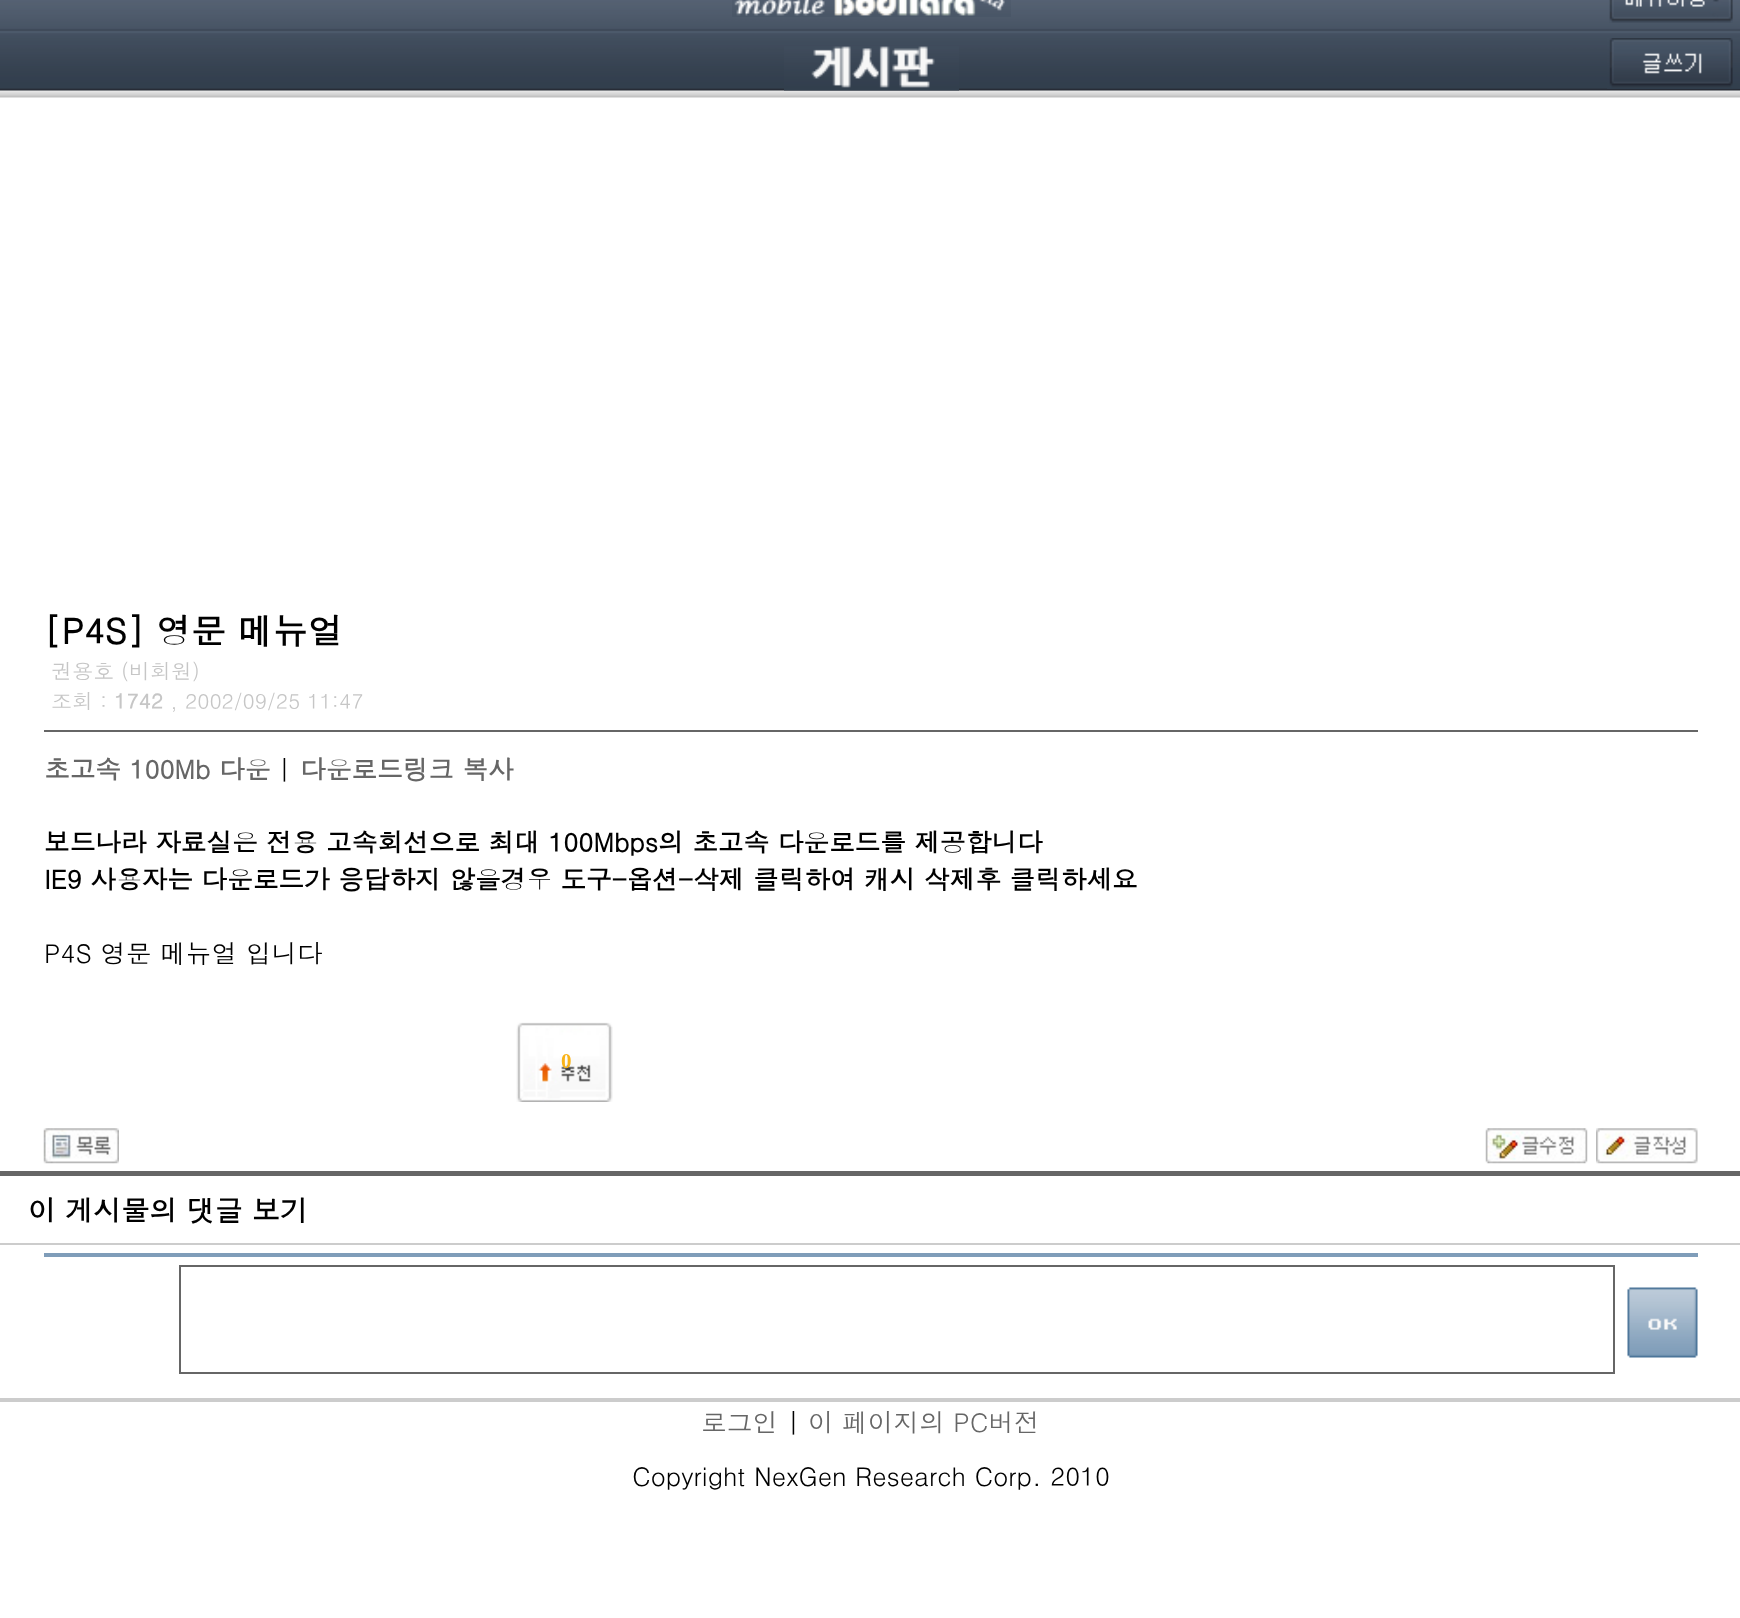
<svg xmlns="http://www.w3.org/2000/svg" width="1740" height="1618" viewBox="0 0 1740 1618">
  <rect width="100%" height="100%" fill="#fff"/>
  <image x="0" y="0" width="1740" height="98" href="img/1.png"/>
  <image x="732" y="0" width="279" height="17" href="img/2.png"/>
  <image x="1609" y="0" width="124" height="23" href="img/3.png"/>
  <image x="784" y="46" width="175" height="45" href="img/4.png"/>
  <image x="1607" y="38" width="133" height="51" href="img/5.png"/>
  <path d="M44 730h1654v2H44z" fill="#666"/>
  <image x="516" y="1022" width="97" height="80" href="img/6.png"/>
  <image x="43" y="1128" width="76" height="36" href="img/7.png"/>
  <image x="1485" y="1128" width="103" height="36" href="img/8.png"/>
  <image x="1596" y="1128" width="102" height="36" href="img/9.png"/>
  <path d="M0 1171h1740v5H0z" fill="#666"/>
  <path d="M0 1243h1740v2H0z" fill="#ccc"/>
  <path d="M44 1253h1654v4H44z" fill="#7f9db9"/>
  <path d="M180 1266h1434v107H180z" fill="none" stroke="#666" stroke-width="2"/>
  <image x="1627" y="1287" width="71" height="71" href="img/10.png"/>
  <path d="M0 1398h1740v4H0z" fill="#ccc"/>
  <text x="44" y="644" font-family="Dotum" font-size="35" font-weight="bold" fill="#000">[P4S] 영문 메뉴얼</text>
  <g font-family="Dotum" font-size="21" fill="#c6c6c6">
    <text x="51" y="679">권용호 (비회원)</text>
    <text x="51" y="709">조회 :</text>
  </g>
  <text x="114" y="709" font-family="Dotum" font-size="21" font-weight="bold" fill="#c6c6c6">1742</text>
  <text x="170" y="709" font-family="Dotum" font-size="21" fill="#c6c6c6">, 2002/09/25 11:47</text>
  <text x="44" y="779" font-family="Dotum" font-size="25.65" font-weight="bold" fill="#666">초고속 100Mb 다운</text>
  <text x="278" y="779" font-family="Dotum" font-size="25.65" fill="#000">|</text>
  <text x="300" y="779" font-family="Dotum" font-size="25.65" font-weight="bold" fill="#666">다운로드링크 복사</text>
  <g font-family="Dotum" font-size="25.65" font-weight="bold" fill="#000">
    <text x="44" y="852">보드나라 자료실은 전용 고속회선으로 최대 100Mbps의 초고속 다운로드를 제공합니다</text>
    <text x="44" y="889">IE9 사용자는 다운로드가 응답하지 않을경우 도구-옵션-삭제 클릭하여 캐시 삭제후 클릭하세요</text>
  </g>
  <text x="44" y="963" font-family="Dotum" font-size="25.65" fill="#000">P4S 영문 메뉴얼 입니다</text>
  <text x="561" y="1068" font-family="Liberation Serif" font-size="21" font-weight="bold" letter-spacing="-2" fill="#f9b318">0</text>
  <text x="28" y="1221" font-family="Dotum" font-size="28" font-weight="bold" fill="#000">이 게시물의 댓글 보기</text>
  <text x="701" y="1432" font-family="Dotum" font-size="25.65" fill="#666">로그인</text>
  <text x="787" y="1432" font-family="Dotum" font-size="25.65" fill="#000">|</text>
  <text x="808" y="1432" font-family="Dotum" font-size="25.65" fill="#666">이 페이지의 PC버전</text>
  <text x="632" y="1486" font-family="Dotum" font-size="25.65" fill="#000">Copyright NexGen Research Corp. 2010</text>
</svg>
